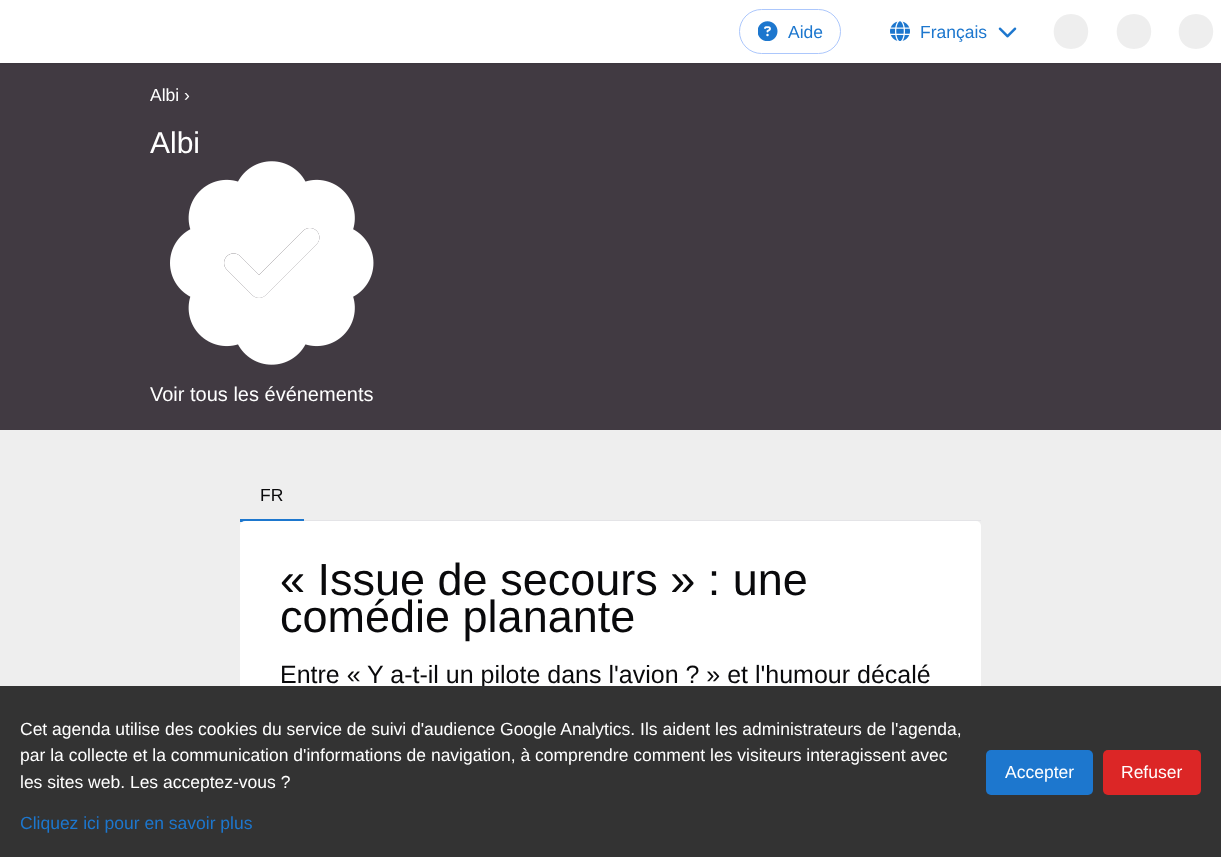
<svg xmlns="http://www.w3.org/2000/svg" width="1221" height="857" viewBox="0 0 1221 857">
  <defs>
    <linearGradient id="g1" gradientUnits="userSpaceOnUse" x1="696" y1="6.2" x2="871" y2="6.2"><stop offset="0" stop-color="#eee"/><stop offset="0.5" stop-color="#d6d6d6"/><stop offset="1" stop-color="#eee"/></linearGradient>
  </defs>
  <rect width="100%" height="100%" fill="#eee"/>
  <path d="M0 63h1221v367H0z" fill="#413a42"/>
  <path d="M0 0h1221v63H0z" fill="#18181b33" filter="blur(0.5px)"/>
  <path d="M0 1h1221v63H0z" fill="#18181b1a" filter="blur(1px)"/>
  <path d="M0 0h1221v63H0z" fill="#fff"/>
  <rect x="739.5" y="9.5" width="101" height="44" rx="22" fill="none" stroke="#acc7fc"/>
  <image x="758" y="21" width="20" height="20" href="img/1.png"/>
  <image x="890" y="21" width="20" height="20" href="img/2.png"/>
  <image x="998" y="27" width="19" height="11" href="img/3.png"/>
  <path d="M1071 14C1048 14 1048 49 1071 49C1094 49 1094 14 1071 14ZM1134 14C1111 14 1111 49 1134 49C1157 49 1157 14 1134 14ZM1196 14C1173 14 1173 49 1196 49C1219 49 1219 14 1196 14Z" fill="url(#g1)" fill-rule="evenodd"/>
  <image x="170" y="161" width="204" height="204" href="img/4.png"/>
  <path d="M304 520h677v1H304z" fill="#e4e4e7"/>
  <path d="M240 519h64v3H240z" fill="#1d77ce"/>
  <rect x="240" y="521" width="741" height="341" rx="5" fill="#fff"/>
  <g font-family="Liberation Sans" font-size="17.5" fill="#1d77ce">
    <text x="788" y="38">Aide</text>
    <text x="920" y="38">Français</text>
  </g>
  <text x="150" y="101" font-family="Liberation Sans" font-size="17.5" fill="#fff">Albi ›</text>
  <text x="150" y="153" font-family="Liberation Sans" font-size="30" fill="#fff">Albi</text>
  <text x="150" y="401" font-family="Liberation Sans" font-size="20" fill="#fff">Voir tous les événements</text>
  <text x="260" y="501" font-family="Liberation Sans" font-size="17.5" fill="#09090b">FR</text>
  <g font-family="Liberation Sans" font-size="45" fill="#09090b">
    <text x="280" y="595">« Issue de secours » : une</text>
    <text x="280" y="632">comédie planante</text>
  </g>
  <text x="280" y="683" font-family="Liberation Sans" font-size="25" fill="#09090b">Entre « Y a-t-il un pilote dans l'avion ? » et l'humour décalé</text>
  <path d="M0 686h1221v171H0z" fill="#333"/>
  <g font-family="Liberation Sans" font-size="17.5" fill="#fff">
    <text x="20" y="735">Cet agenda utilise des cookies du service de suivi d'audience Google Analytics. Ils aident les administrateurs de l'agenda,</text>
    <text x="20" y="761">par la collecte et la communication d'informations de navigation, à comprendre comment les visiteurs interagissent avec</text>
    <text x="20" y="788">les sites web. Les acceptez-vous ?</text>
  </g>
  <text x="20" y="829" font-family="Liberation Sans" font-size="17.5" fill="#1d77ce">Cliquez ici pour en savoir plus</text>
  <rect x="986" y="750" width="107" height="45" rx="5" fill="#1d77ce"/>
  <text x="1005" y="778" font-family="Liberation Sans" font-size="17.5" fill="#fff">Accepter</text>
  <rect x="1103" y="750" width="98" height="45" rx="5" fill="#dc2626"/>
  <text x="1121" y="778" font-family="Liberation Sans" font-size="17.5" fill="#fff">Refuser</text>
</svg>
